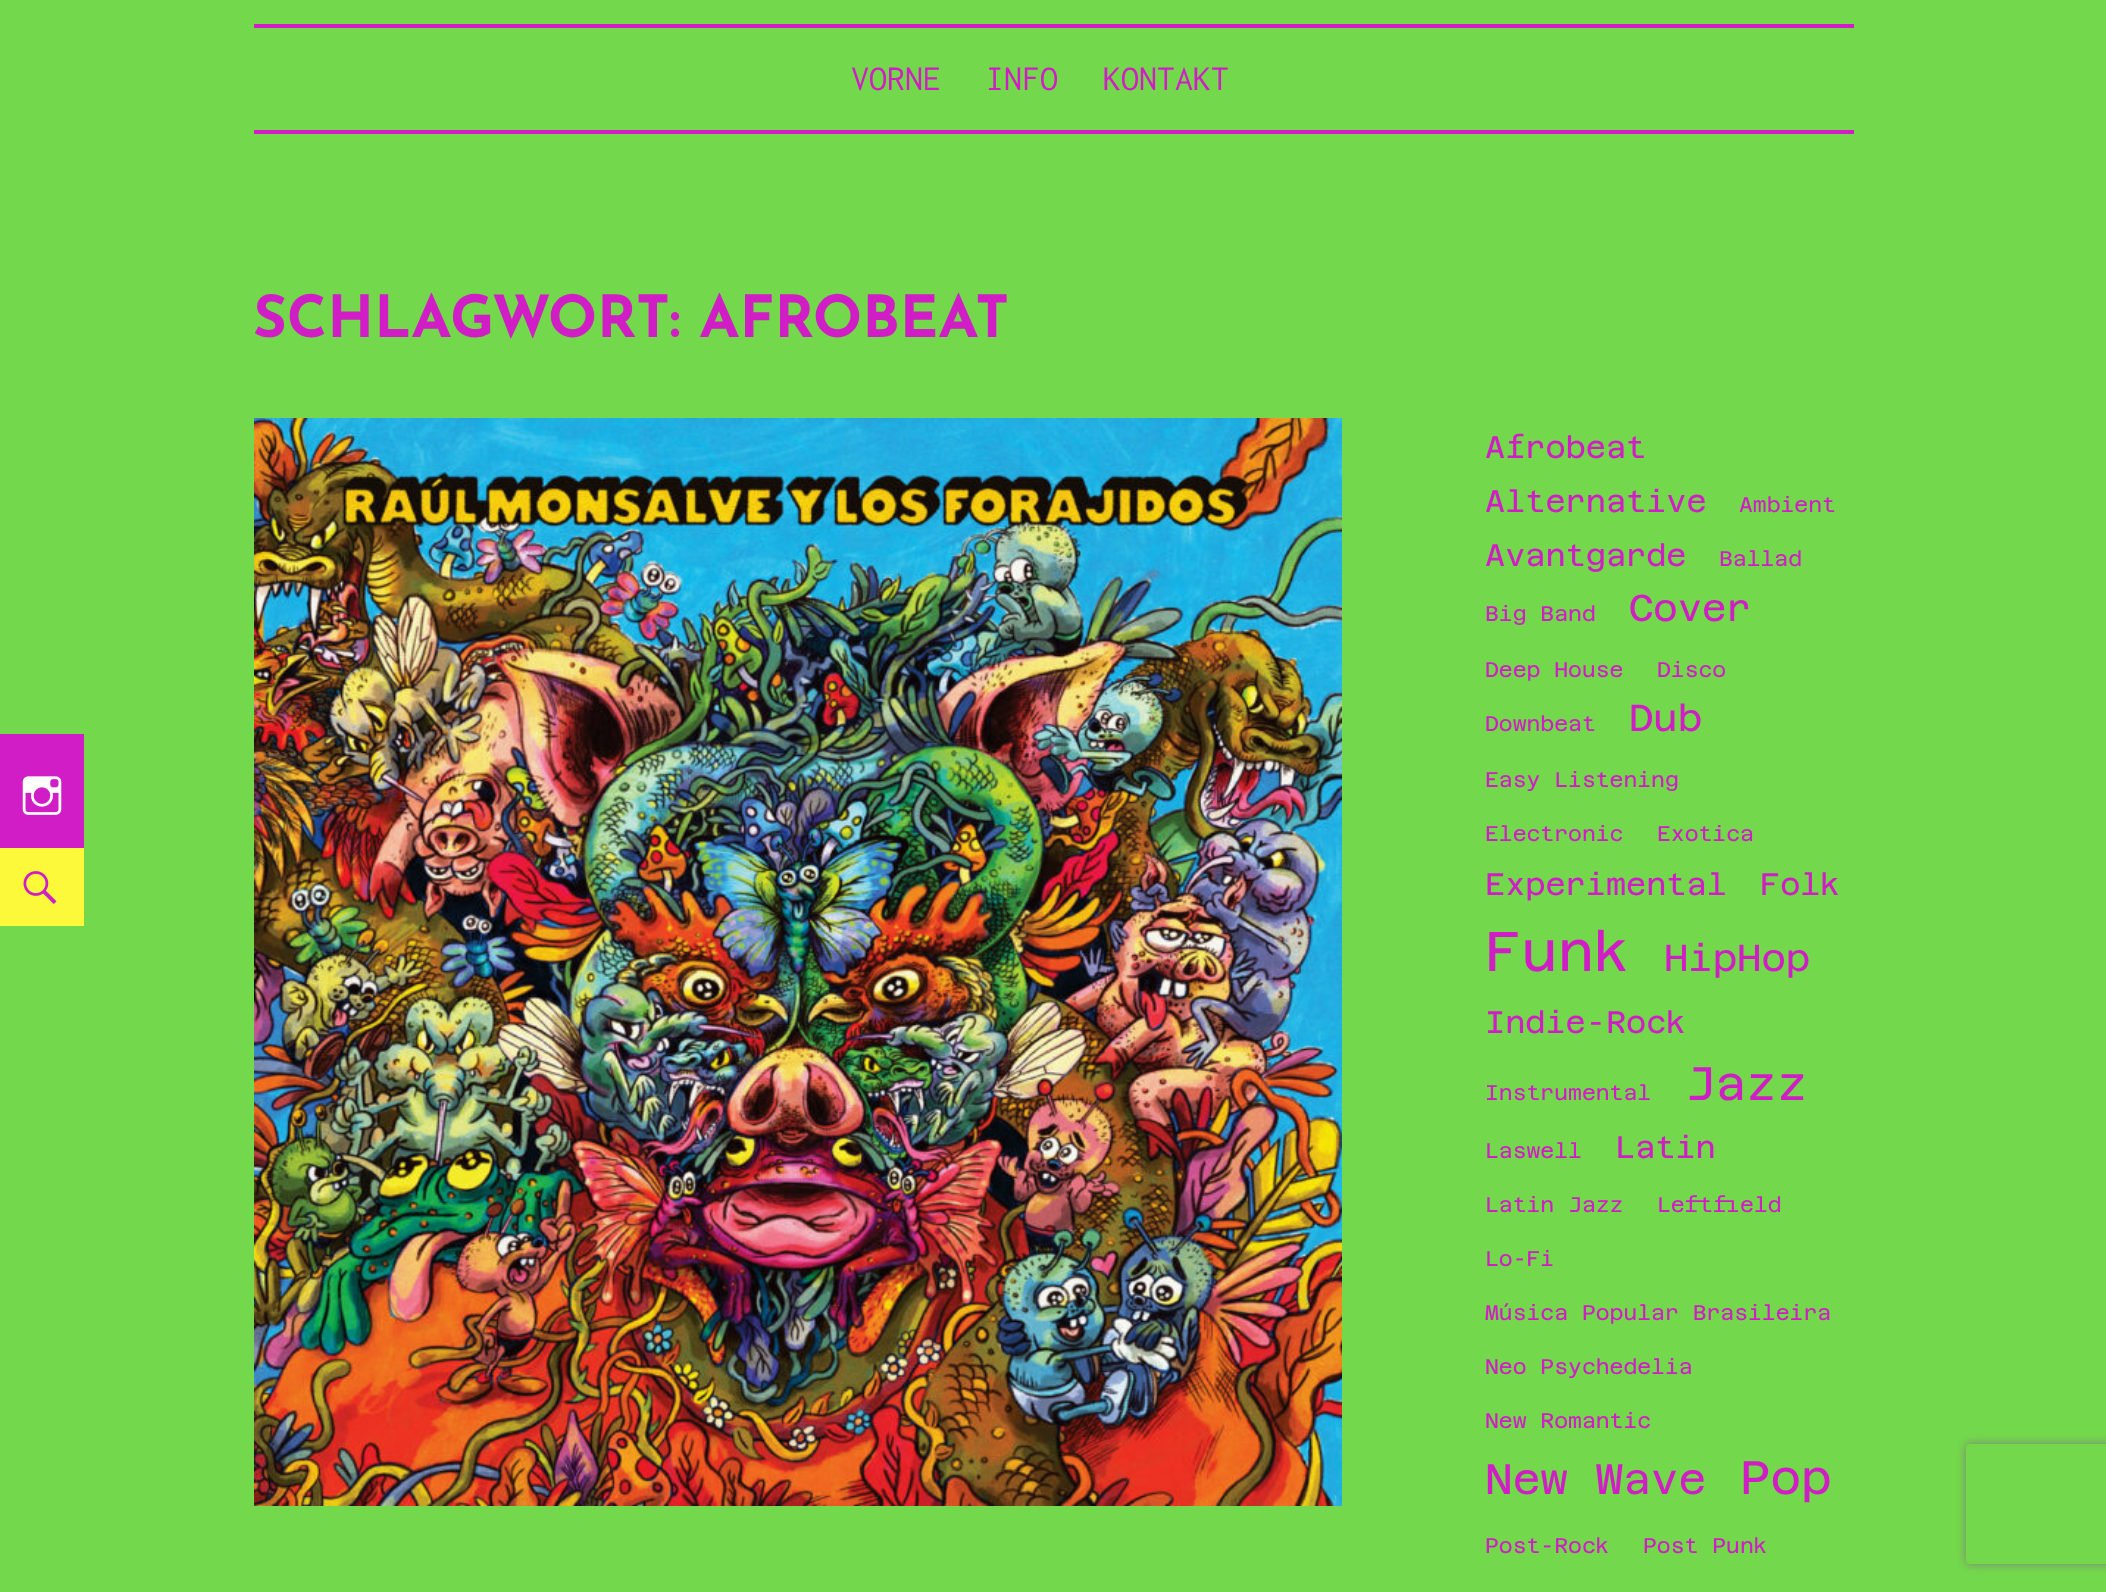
<svg xmlns="http://www.w3.org/2000/svg" width="2106" height="1592" viewBox="0 0 2106 1592">
  <defs>
    <clipPath id="clip1"><path d="M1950 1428H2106V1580H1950ZM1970 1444H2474C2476 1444 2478 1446 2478 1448V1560C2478 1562 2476 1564 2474 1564H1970C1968 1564 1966 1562 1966 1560V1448C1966 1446 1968 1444 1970 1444Z" clip-rule="evenodd"/></clipPath>
  </defs>
  <rect width="100%" height="100%" fill="#73d84b"/>
  <path d="M254 24h1600v4H254z" fill="#d11dc5"/>
  <path d="M254 130h1600v4H254z" fill="#d11dc5"/>
  <path d="M0 734h84v114H0z" fill="#d11dc5"/>
  <image x="22" y="776" width="40" height="39" href="img/1.png"/>
  <path d="M0 848h84v78H0z" fill="#fcf93a"/>
  <image x="23" y="871" width="34" height="33" href="img/2.png"/>
  <image x="254" y="418" width="1088" height="1088" href="img/3.png"/>
  <g clip-path="url(#clip1)">
    <rect x="1966" y="1444" width="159" height="120" rx="4" fill="#808080" filter="blur(5px)"/>
  </g>
  <g font-family="Inconsolata" font-size="36" fill="#d11dc5">
    <text x="851" y="90">VORNE</text>
    <text x="986" y="90">INFO</text>
    <text x="1103" y="90">KONTAKT</text>
  </g>
  <text x="253" y="337" font-family="Josefin Sans" font-size="58" font-weight="bold" fill="#d11dc5">SCHLAGWORT: AFROBEAT</text>
  <g font-family="Azeret Mono" font-size="31" font-weight="100" fill="#d11dc5">
    <text x="1485" y="458">Afrobeat</text>
    <text x="1485" y="512">Alternative</text>
  </g>
  <text x="1739" y="512" font-family="Azeret Mono" font-size="21.3" font-weight="100" fill="#d11dc5">Ambient</text>
  <text x="1485" y="566" font-family="Azeret Mono" font-size="31" font-weight="100" fill="#d11dc5">Avantgarde</text>
  <g font-family="Azeret Mono" font-size="21.3" font-weight="100" fill="#d11dc5">
    <text x="1719" y="566">Ballad</text>
    <text x="1485" y="621">Big Band</text>
  </g>
  <text x="1629" y="621" font-family="Azeret Mono" font-size="37.5" font-weight="100" fill="#d11dc5">Cover</text>
  <g font-family="Azeret Mono" font-size="21.3" font-weight="100" fill="#d11dc5">
    <text x="1485" y="677">Deep House</text>
    <text x="1657" y="677">Disco</text>
    <text x="1485" y="731">Downbeat</text>
  </g>
  <text x="1629" y="731" font-family="Azeret Mono" font-size="37.5" font-weight="100" fill="#d11dc5">Dub</text>
  <g font-family="Azeret Mono" font-size="21.3" font-weight="100" fill="#d11dc5">
    <text x="1485" y="787">Easy Listening</text>
    <text x="1485" y="841">Electronic</text>
    <text x="1657" y="841">Exotica</text>
  </g>
  <g font-family="Azeret Mono" font-size="31" font-weight="100" fill="#d11dc5">
    <text x="1485" y="895">Experimental</text>
    <text x="1760" y="895">Folk</text>
  </g>
  <text x="1485" y="971" font-family="Azeret Mono" font-size="56" font-weight="100" fill="#d11dc5">Funk</text>
  <text x="1664" y="971" font-family="Azeret Mono" font-size="37.5" font-weight="100" fill="#d11dc5">HipHop</text>
  <text x="1485" y="1033" font-family="Azeret Mono" font-size="31" font-weight="100" fill="#d11dc5">Indie-Rock</text>
  <text x="1485" y="1100" font-family="Azeret Mono" font-size="21.3" font-weight="100" fill="#d11dc5">Instrumental</text>
  <text x="1685" y="1100" font-family="Azeret Mono" font-size="47" font-weight="100" fill="#d11dc5">Jazz</text>
  <text x="1485" y="1158" font-family="Azeret Mono" font-size="21.3" font-weight="100" fill="#d11dc5">Laswell</text>
  <text x="1615" y="1158" font-family="Azeret Mono" font-size="31" font-weight="100" fill="#d11dc5">Latin</text>
  <g font-family="Azeret Mono" font-size="21.3" font-weight="100" fill="#d11dc5">
    <text x="1485" y="1212">Latin Jazz</text>
    <text x="1657" y="1212">Leftfield</text>
    <text x="1485" y="1266">Lo-Fi</text>
    <text x="1485" y="1320">Música Popular Brasileira</text>
    <text x="1485" y="1374">Neo Psychedelia</text>
    <text x="1485" y="1428">New Romantic</text>
  </g>
  <text x="1485" y="1494" font-family="Azeret Mono" font-size="42.5" font-weight="100" fill="#d11dc5">New Wave</text>
  <text x="1740" y="1494" font-family="Azeret Mono" font-size="47" font-weight="100" fill="#d11dc5">Pop</text>
  <g font-family="Azeret Mono" font-size="21.3" font-weight="100" fill="#d11dc5">
    <text x="1485" y="1553">Post-Rock</text>
    <text x="1643" y="1553">Post Punk</text>
  </g>
</svg>
